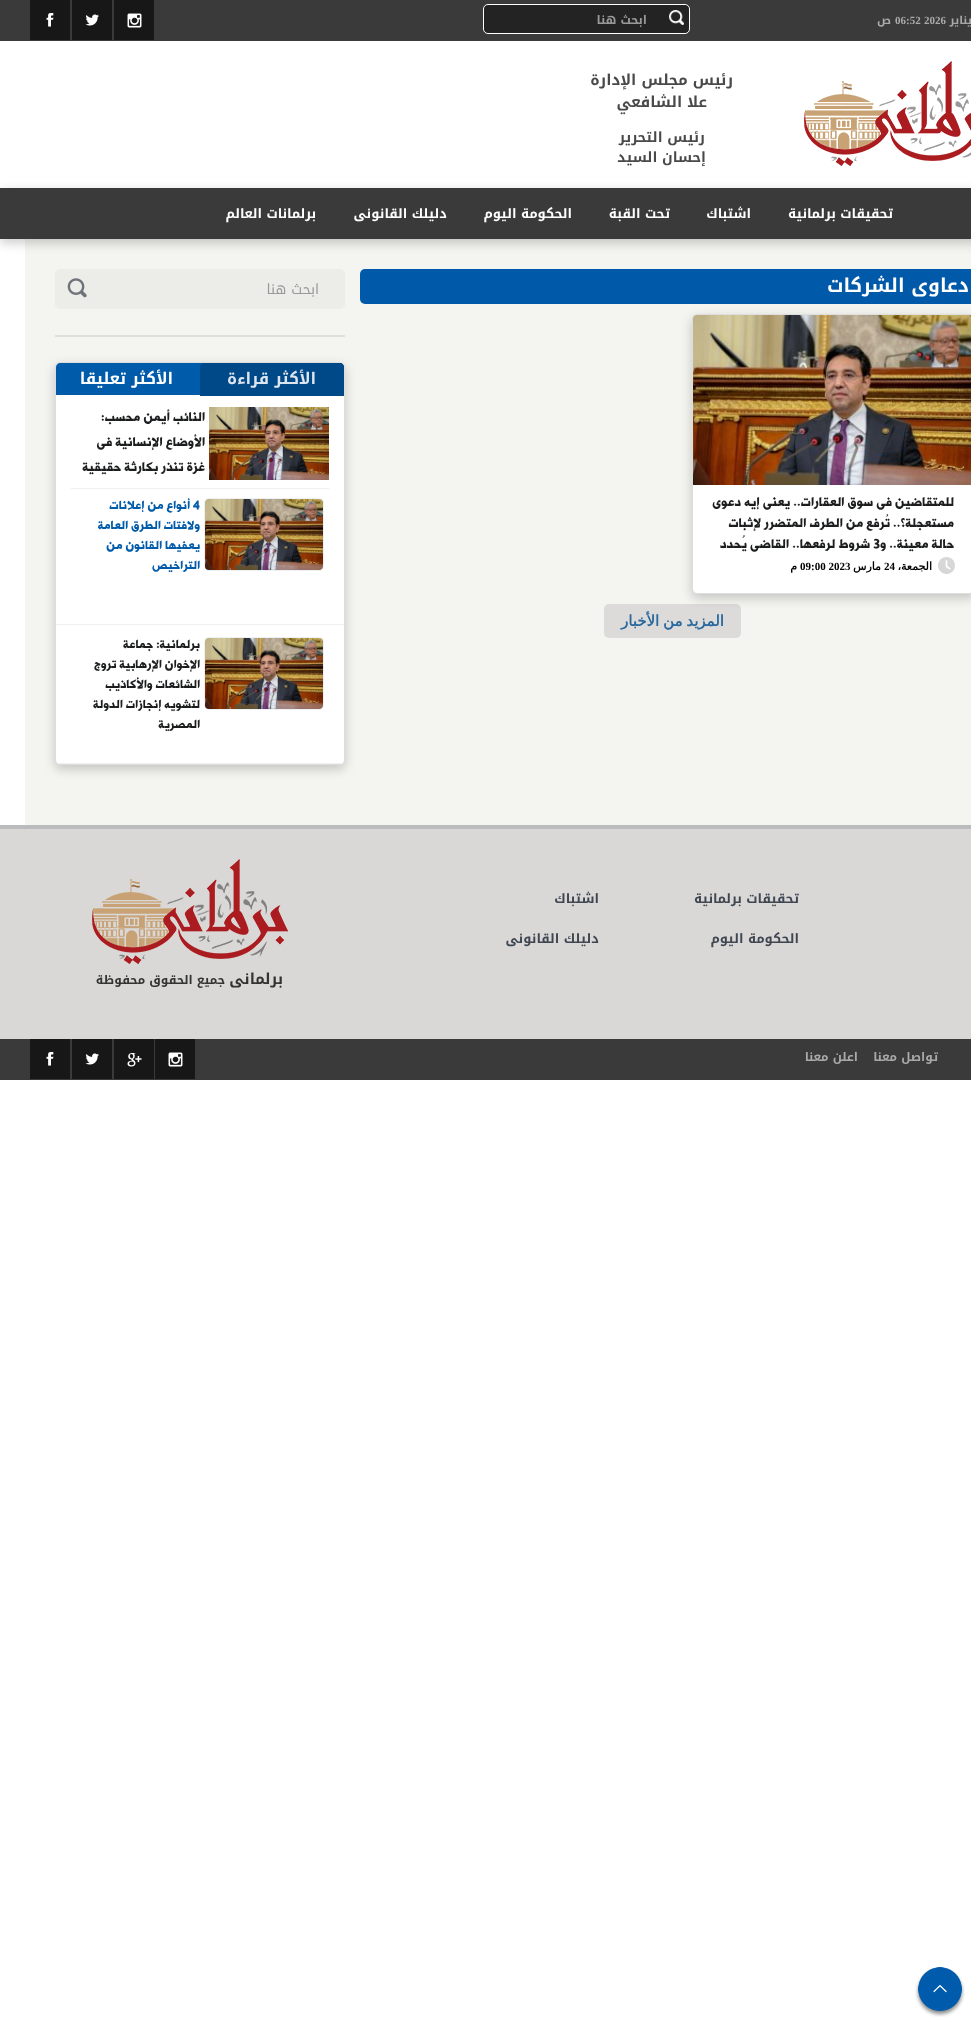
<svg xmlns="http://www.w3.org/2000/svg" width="971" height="2023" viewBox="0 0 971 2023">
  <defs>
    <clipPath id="clip1"><rect x="56" y="363" width="288" height="401" rx="4"/></clipPath>
  </defs>
  <rect width="100%" height="100%" fill="#fff"/>
  <path d="M0 0h971v41H0z" fill="#3a3a3a"/>
  <rect x="483.5" y="4.5" width="206" height="29" rx="4.5" fill="#232323" stroke="#fff"/>
  <image x="669" y="10" width="15" height="15" href="img/1.png"/>
  <image x="114" y="0" width="40" height="40" href="img/2.png"/>
  <image x="72" y="0" width="40" height="40" href="img/3.png"/>
  <image x="30" y="0" width="40" height="40" href="img/4.png"/>
  <image x="804" y="61" width="167" height="105" href="img/5.png"/>
  <path d="M25 239h946v586H25z" fill="#f4f5f0"/>
  <path d="M0 192h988v51H0z" fill="#00000033" filter="blur(5.5px)"/>
  <path d="M0 188h971v51H0z" fill="#3a3a3a"/>
  <rect x="360" y="269" width="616" height="35" rx="5" fill="#0059a9"/>
  <rect x="604" y="604" width="137" height="34" rx="5" fill="#dcdbd9"/>
  <rect x="692" y="318" width="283" height="280" rx="5" fill="#00000033" filter="blur(5.5px)"/>
  <rect x="692.5" y="314.5" width="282" height="279" rx="4.5" fill="#fff" stroke="#dededc"/>
  <image x="693" y="315" width="278" height="170" href="img/6.png"/>
  <image x="938" y="557" width="17" height="17" href="img/7.png"/>
  <rect x="55" y="269" width="290" height="40" rx="5" fill="#ecede8"/>
  <image x="67" y="278" width="20" height="20" href="img/8.png"/>
  <rect x="55" y="335" width="290" height="2" rx="1" fill="#dededc"/>
  <rect x="55" y="366" width="290" height="403" rx="5" fill="#00000033" filter="blur(5.5px)"/>
  <rect x="55.5" y="362.5" width="289" height="402" rx="4.5" fill="#fff" stroke="#dededc"/>
  <path d="M60 363H340C342 363 344 365 344 367V395H56V367C56 365 58 363 60 363Z" fill="#005baa"/>
  <path d="M204 363H340C342 363 344 365 344 367V396H200V367C200 365 202 363 204 363Z" fill="#004988"/>
  <image x="209" y="407" width="120" height="73" href="img/9.png"/>
  <path d="M71 488h258v1H71z" fill="#eef1f3"/>
  <path d="M56 624h288v1H56z" fill="#eef1f3"/>
  <rect x="204.5" y="498.5" width="119" height="72" rx="4.5" fill="none" stroke="#eef1f3"/>
  <image x="205" y="499" width="118" height="71" href="img/10.png"/>
  <g clip-path="url(#clip1)">
    <path d="M56 763h288v1H56z" fill="#eef1f3"/>
  </g>
  <rect x="204.5" y="637.5" width="119" height="72" rx="4.5" fill="none" stroke="#eef1f3"/>
  <image x="205" y="638" width="118" height="71" href="img/10.png"/>
  <path d="M0 829h971v210H0z" fill="#d9d8d7"/>
  <path d="M0 825h971v4H0z" fill="#babbbc"/>
  <image x="92" y="859" width="196" height="105" href="img/11.png"/>
  <path d="M0 1039h971v41H0z" fill="#3a3a3a"/>
  <image x="155" y="1039" width="40" height="40" href="img/2.png"/>
  <image x="114" y="1039" width="40" height="40" href="img/12.png"/>
  <image x="72" y="1039" width="40" height="40" href="img/3.png"/>
  <image x="30" y="1039" width="40" height="40" href="img/4.png"/>
  <image x="915" y="1967" width="50" height="50" href="img/13.png"/>
  <text x="972" y="24" font-family="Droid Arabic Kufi" font-size="11" font-weight="bold" direction="rtl" fill="#a9a9a9">يناير</text>
  <g font-family="Liberation Serif" font-size="11" font-weight="bold" fill="#a9a9a9">
    <text x="924" y="24">2026</text>
    <text x="895" y="24">06:52</text>
  </g>
  <text x="891" y="24" font-family="Droid Arabic Kufi" font-size="11" font-weight="bold" direction="rtl" fill="#a9a9a9">ص</text>
  <text x="647" y="24" font-family="Droid Arabic Kufi" font-size="12" font-weight="bold" direction="rtl" fill="#999">ابحث هنا</text>
  <g font-family="Droid Arabic Kufi" font-size="15" font-weight="bold" direction="rtl" fill="#494949">
    <text x="733" y="85">رئيس مجلس الإدارة</text>
    <text x="707" y="107">علا الشافعي</text>
  </g>
  <g font-family="Droid Arabic Kufi" font-size="14" font-weight="bold" direction="rtl" fill="#494949">
    <text x="705" y="142">رئيس التحرير</text>
    <text x="706" y="162">إحسان السيد</text>
  </g>
  <g font-family="Droid Arabic Kufi" font-size="13" font-weight="bold" direction="rtl" fill="#fff">
    <text x="893" y="218">تحقيقات برلمانية</text>
    <text x="751" y="218">اشتباك</text>
    <text x="670" y="218">تحت القبة</text>
    <text x="572" y="218">الحكومة اليوم</text>
    <text x="447" y="218">دليلك القانونى</text>
    <text x="316" y="218">برلمانات العالم</text>
  </g>
  <text x="969" y="292" font-family="Droid Arabic Kufi" font-size="19" font-weight="bold" direction="rtl" fill="#fff">دعاوى الشركات</text>
  <g font-family="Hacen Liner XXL" font-size="15" direction="rtl" fill="#1c1d1e">
    <text x="954" y="507">للمتقاضين فى سوق العقارات.. يعنى إيه دعوى</text>
    <text x="954" y="528">مستعجلة؟.. تُرفع من الطرف المتضرر لإثبات</text>
    <text x="954" y="549">حالة معينة.. و</text>
  </g>
  <text x="873" y="549" font-family="Hacen Liner XXL" font-size="15" fill="#1c1d1e">3</text>
  <text x="870" y="549" font-family="Hacen Liner XXL" font-size="15" direction="rtl" fill="#1c1d1e">شروط لرفعها.. القاضى يُحدد</text>
  <text x="932" y="570" font-family="DejaVu Sans" font-size="11" font-weight="bold" direction="rtl" fill="#000">الجمعة،</text>
  <text x="884" y="570" font-family="Liberation Serif" font-size="11" font-weight="bold" fill="#000">24</text>
  <text x="881" y="570" font-family="DejaVu Sans" font-size="11" font-weight="bold" direction="rtl" fill="#000">مارس</text>
  <text x="800" y="570" font-family="Liberation Serif" font-size="11" font-weight="bold" fill="#000">09:00 2023</text>
  <text x="797" y="570" font-family="DejaVu Sans" font-size="11" font-weight="bold" direction="rtl" fill="#000">م</text>
  <text x="724" y="626" word-spacing="-1" font-family="DejaVu Sans" font-size="15" font-weight="bold" direction="rtl" fill="#2a699e">المزيد من الأخبار</text>
  <text x="319" y="294" font-family="Droid Arabic Kufi" font-size="14" direction="rtl" fill="#999">ابحث هنا</text>
  <text x="316" y="384" font-family="Droid Arabic Kufi" font-size="16" font-weight="bold" direction="rtl" fill="#dde5f0">الأكثر قراءة</text>
  <text x="173" y="384" font-family="Droid Arabic Kufi" font-size="16" font-weight="bold" direction="rtl" fill="#fff">الأكثر تعليقا</text>
  <g font-family="Hacen Liner XXL" font-size="15" direction="rtl" fill="#1c1d1e">
    <text x="205" y="422">النائب أيمن محسب:</text>
    <text x="205" y="447">الأوضاع الإنسانية فى</text>
    <text x="205" y="472">غزة تنذر بكارثة حقيقية</text>
  </g>
  <text x="193" y="510" font-family="Hacen Liner XXL" font-size="14" fill="#005baa">4</text>
  <g font-family="Hacen Liner XXL" font-size="14" direction="rtl" fill="#005baa">
    <text x="190" y="510">أنواع من إعلانات</text>
    <text x="200" y="530">ولافتات الطرق العامة</text>
    <text x="200" y="550">يعفيها القانون من</text>
    <text x="200" y="570">التراخيص</text>
  </g>
  <g font-family="Hacen Liner XXL" font-size="14" direction="rtl" fill="#1c1d1e">
    <text x="200" y="649">برلمانية: جماعة</text>
    <text x="200" y="669">الإخوان الإرهابية تروج</text>
    <text x="200" y="689">الشائعات والأكاذيب</text>
    <text x="200" y="709">لتشويه إنجازات الدولة</text>
    <text x="200" y="729">المصرية</text>
  </g>
  <g font-family="Droid Arabic Kufi" font-size="13" font-weight="bold" direction="rtl" fill="#3e4651">
    <text x="799" y="903">تحقيقات برلمانية</text>
    <text x="599" y="903">اشتباك</text>
    <text x="799" y="943">الحكومة اليوم</text>
    <text x="599" y="943">دليلك القانونى</text>
  </g>
  <text x="283" y="984" font-family="Droid Arabic Kufi" font-size="15" font-weight="bold" direction="rtl" fill="#333">برلمانى</text>
  <text x="225" y="984" font-family="Droid Arabic Kufi" font-size="12" font-weight="bold" direction="rtl" fill="#333">جميع الحقوق محفوظة</text>
  <g font-family="Droid Arabic Kufi" font-size="12" font-weight="bold" direction="rtl" fill="#a9a9a9">
    <text x="938" y="1061">تواصل معنا</text>
    <text x="858" y="1061">اعلن معنا</text>
  </g>
</svg>
